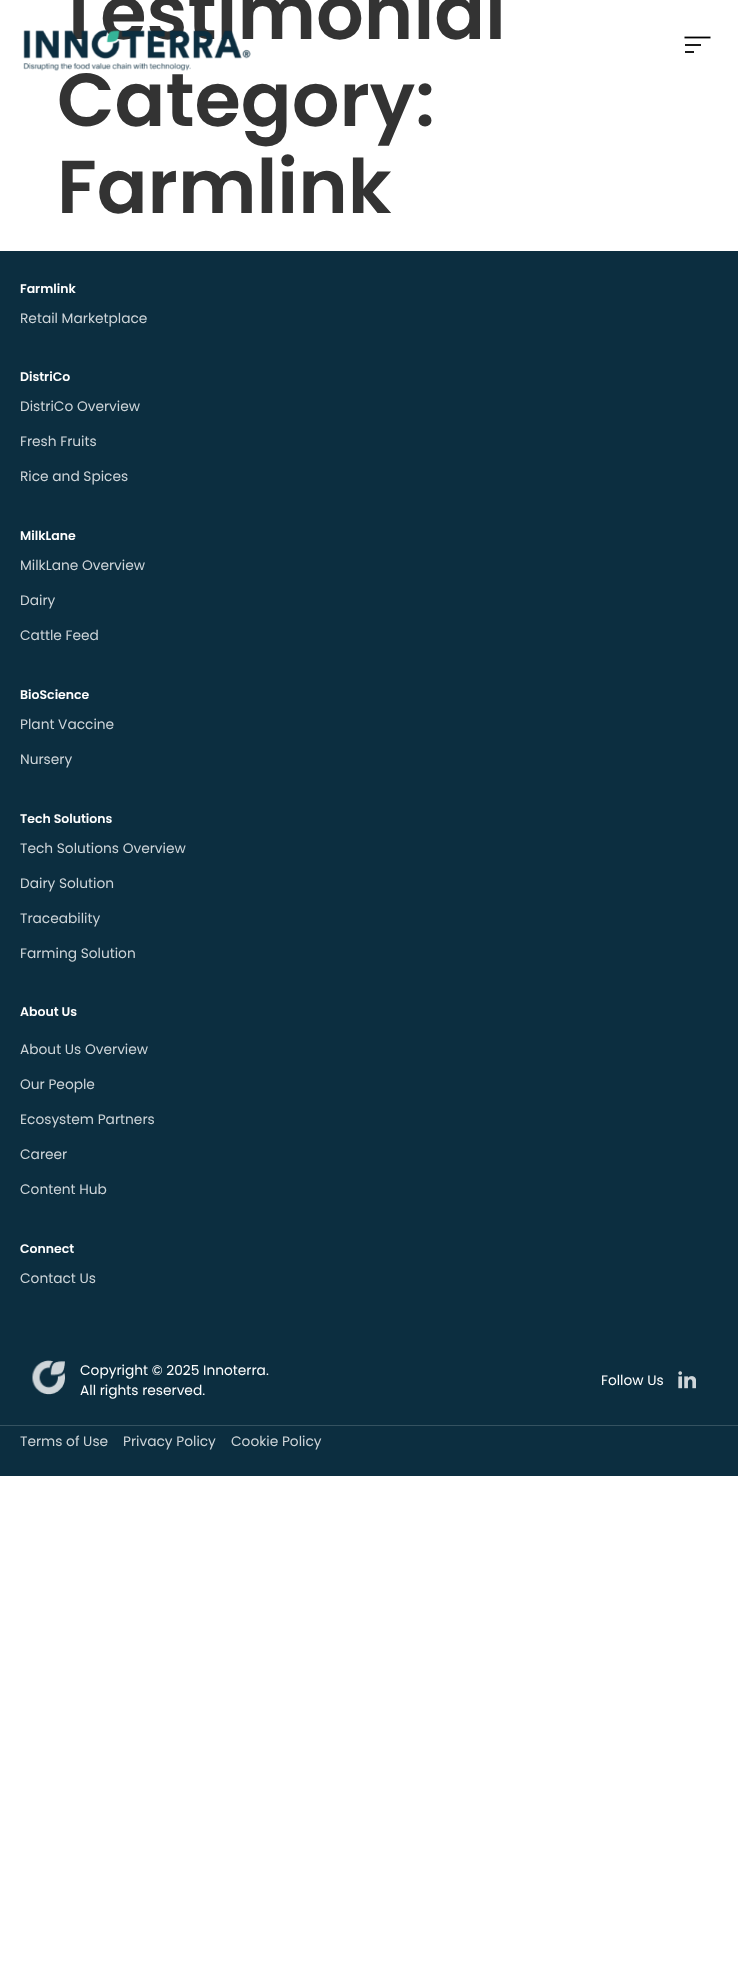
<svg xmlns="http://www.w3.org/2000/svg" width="738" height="1981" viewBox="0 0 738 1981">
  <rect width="100%" height="100%" fill="#fff"/>
  <path d="M684.5 37.5H710.5" fill="none" stroke="#000" stroke-width="1.8"/>
  <path d="M685 44h16v2H685z" fill="#1a1a1a"/>
  <path d="M685 51h9v2H685z" fill="#1a1a1a"/>
  <path d="M0 251h738v1225H0z" fill="#0c2e40"/>
  <image x="32" y="1360" width="33" height="35" href="img/2.png"/>
  <image x="678" y="1371" width="18" height="18" href="img/3.png"/>
  <path d="M0 1425h738v1H0z" fill="#355260"/>
  <g font-family="Poppins" font-size="75" font-weight="600" fill="#333">
    <text x="57" y="39">Testimonial</text>
    <text x="57" y="126">Category:</text>
    <text x="57" y="213">Farmlink</text>
  </g>
  <image x="23" y="29" width="228" height="42" href="img/1.png"/>
  <text x="20" y="293" font-family="Poppins" font-size="12.5" font-weight="600" fill="#fff">Farmlink</text>
  <text x="20" y="323" font-family="Poppins" font-size="13.75" fill="#ced5d9">Retail Marketplace</text>
  <text x="20" y="381" font-family="Poppins" font-size="12.5" font-weight="600" fill="#fff">DistriCo</text>
  <g font-family="Poppins" font-size="13.75" fill="#ced5d9">
    <text x="20" y="411">DistriCo Overview</text>
    <text x="20" y="446">Fresh Fruits</text>
    <text x="20" y="481">Rice and Spices</text>
  </g>
  <text x="20" y="540" font-family="Poppins" font-size="12.5" font-weight="600" fill="#fff">MilkLane</text>
  <g font-family="Poppins" font-size="13.75" fill="#ced5d9">
    <text x="20" y="570">MilkLane Overview</text>
    <text x="20" y="605">Dairy</text>
    <text x="20" y="640">Cattle Feed</text>
  </g>
  <text x="20" y="699" font-family="Poppins" font-size="12.5" font-weight="600" fill="#fff">BioScience</text>
  <g font-family="Poppins" font-size="13.75" fill="#ced5d9">
    <text x="20" y="729">Plant Vaccine</text>
    <text x="20" y="764">Nursery</text>
  </g>
  <text x="20" y="823" font-family="Poppins" font-size="12.5" font-weight="600" fill="#fff">Tech Solutions</text>
  <g font-family="Poppins" font-size="13.75" fill="#ced5d9">
    <text x="20" y="853">Tech Solutions Overview</text>
    <text x="20" y="888">Dairy Solution</text>
    <text x="20" y="923">Traceability</text>
    <text x="20" y="958">Farming Solution</text>
  </g>
  <text x="20" y="1016" font-family="Poppins" font-size="12.5" font-weight="600" fill="#fff">About Us</text>
  <g font-family="Poppins" font-size="13.75" fill="#ced5d9">
    <text x="20" y="1054">About Us Overview</text>
    <text x="20" y="1089">Our People</text>
    <text x="20" y="1124">Ecosystem Partners</text>
    <text x="20" y="1159">Career</text>
    <text x="20" y="1194">Content Hub</text>
  </g>
  <text x="20" y="1253" font-family="Poppins" font-size="12.5" font-weight="600" fill="#fff">Connect</text>
  <text x="20" y="1283" font-family="Poppins" font-size="13.75" fill="#ced5d9">Contact Us</text>
  <g font-family="Poppins" font-size="13.75" fill="#fff">
    <text x="80" y="1375">Copyright © 2025 Innoterra.</text>
    <text x="80" y="1395">All rights reserved.</text>
    <text x="601" y="1385">Follow Us</text>
  </g>
  <g font-family="Poppins" font-size="13.75" fill="#ced5d9">
    <text x="20" y="1446">Terms of Use</text>
    <text x="123" y="1446">Privacy Policy</text>
    <text x="231" y="1446">Cookie Policy</text>
  </g>
</svg>
